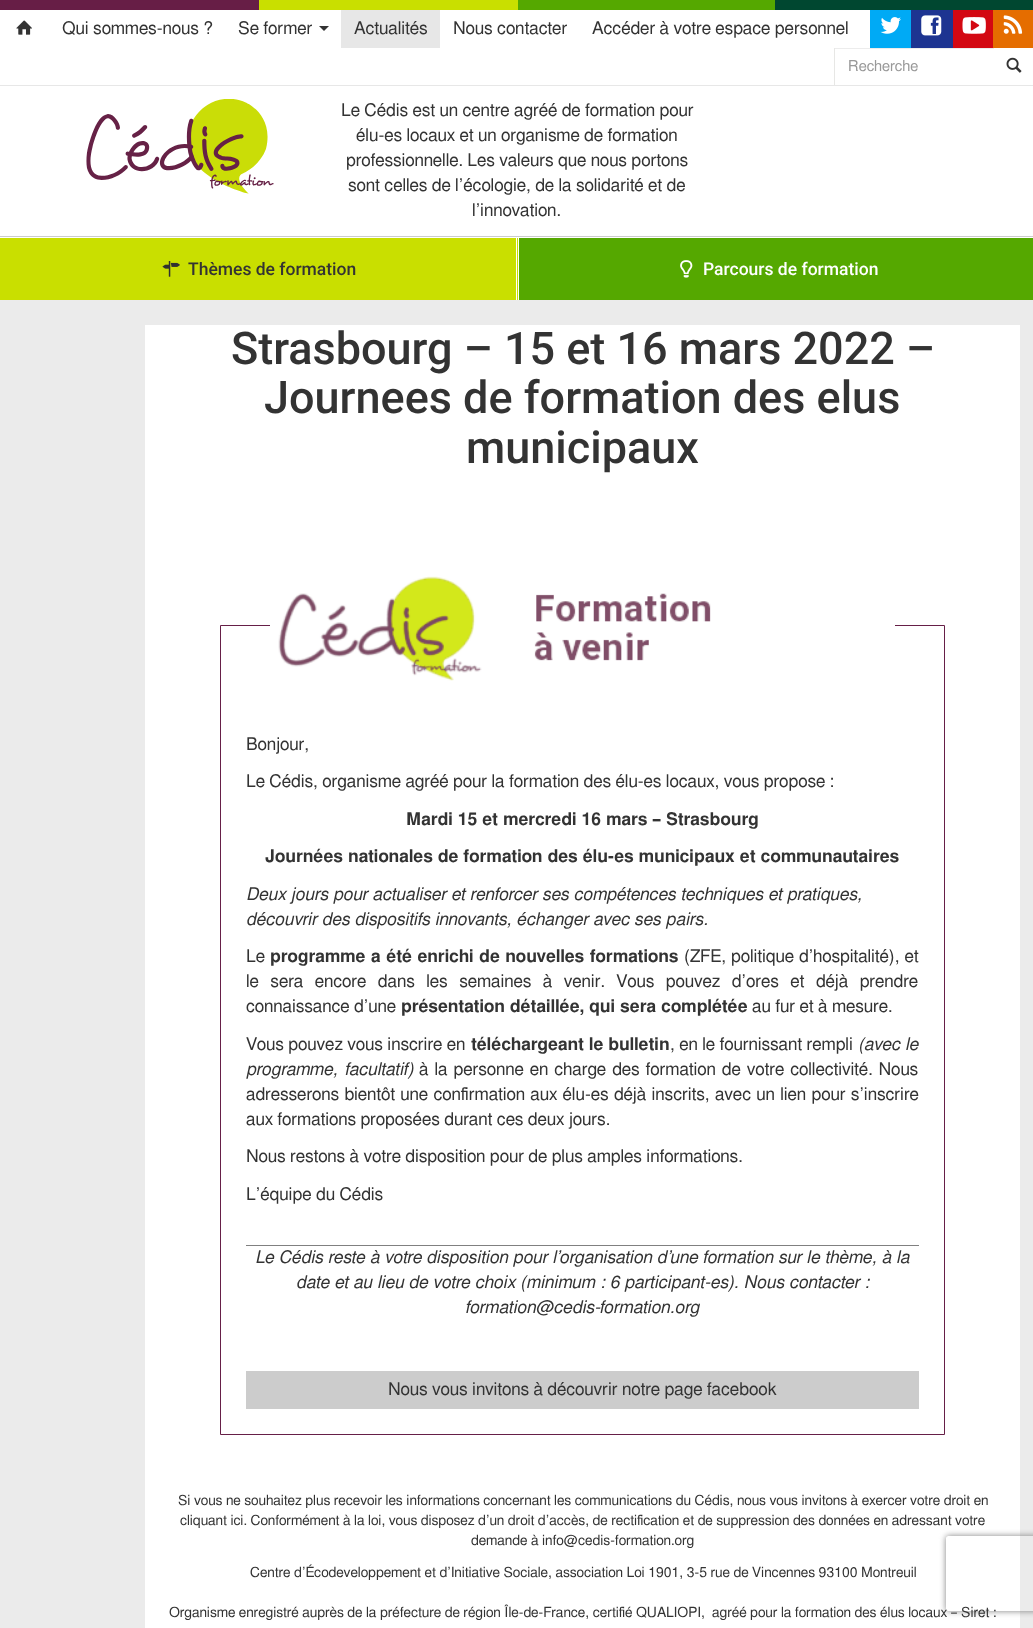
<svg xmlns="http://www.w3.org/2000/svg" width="1033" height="1628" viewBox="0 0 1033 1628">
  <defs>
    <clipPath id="clip1"><path d="M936 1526H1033V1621H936ZM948.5 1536H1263.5C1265 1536 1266 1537 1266 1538.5V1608.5C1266 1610 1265 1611 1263.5 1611H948.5C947 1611 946 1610 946 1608.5V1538.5C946 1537 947 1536 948.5 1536Z" clip-rule="evenodd"/></clipPath>
  </defs>
  <rect width="100%" height="100%" fill="#ebebeb"/>
  <path d="M0 10h1033v75H0z" fill="#fff"/>
  <path d="M0 85h1033v1H0z" fill="#e7e7e7"/>
  <path d="M0 0h259v10H0z" fill="#671e46"/>
  <path d="M259 0h259v10H259z" fill="#c9df00"/>
  <path d="M518 0h257v10H518z" fill="#55a800"/>
  <path d="M775 0h258v10H775z" fill="#004730"/>
  <image x="16" y="20" width="16" height="15" href="img/1.png"/>
  <path d="M319 26H329L324 31Z" fill="#333"/>
  <path d="M341 10h99v38H341z" fill="#e7e7e7"/>
  <path d="M870 10h41v38H870z" fill="#00aaf5"/>
  <image x="880" y="17" width="21" height="17" href="img/2.png"/>
  <path d="M911 10h42v38H911z" fill="#1d3491"/>
  <image x="921" y="15" width="21" height="21" href="img/3.png"/>
  <path d="M953 10h40v38H953z" fill="#d30812"/>
  <image x="962" y="17" width="24" height="17" href="img/4.png"/>
  <path d="M993 10h40v38H993z" fill="#e56d00"/>
  <image x="1003" y="15" width="20" height="19" href="img/5.png"/>
  <path d="M835 48h159v1H835z" fill="#ececec"/>
  <path d="M834 48h1v37H834z" fill="#e7e7e5"/>
  <image x="1006" y="57" width="16" height="16" href="img/6.png"/>
  <path d="M0 86h1033v152H0z" fill="#fff"/>
  <path d="M0 236h1033v1H0z" fill="#ccc"/>
  <image x="86" y="99" width="188" height="95" href="img/7.png"/>
  <path d="M0 238h518v62H0z" fill="#c9df00"/>
  <path d="M516 238h1v62H516z" fill="#fff"/>
  <image x="162" y="261" width="18" height="16" href="img/8.png"/>
  <path d="M519 238h514v62H519z" fill="#55a800"/>
  <path d="M518 238h1v62H518z" fill="#fff"/>
  <image x="680" y="260" width="13" height="18" href="img/9.png"/>
  <path d="M145 325h875v1303H145z" fill="#fff"/>
  <path d="M220.5 625.5h724v809H220.5z" fill="none" stroke="#661f47"/>
  <image x="270" y="576" width="625" height="105" href="img/10.png"/>
  <path d="M246 1245h673v1H246z" fill="#808080"/>
  <path d="M246 1371h673v38H246z" fill="#ccc"/>
  <g clip-path="url(#clip1)">
    <rect x="946" y="1536" width="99" height="75" rx="2.5" fill="#808080" filter="blur(3px)"/>
  </g>
  <g font-family="FreeSans" font-size="17.5" fill="#333">
    <text x="62" y="34">Qui sommes-nous ?</text>
    <text x="238" y="34">Se former</text>
    <text x="354" y="34">Actualités</text>
    <text x="453" y="34">Nous contacter</text>
    <text x="592" y="34">Accéder à votre espace personnel</text>
  </g>
  <text x="848" y="71" font-family="FreeSans" font-size="15" fill="#999">Recherche</text>
  <g font-family="FreeSans" font-size="17.5" fill="#333">
    <text x="341" y="116">Le Cédis est un centre agréé de formation pour</text>
    <text x="356" y="141">élu-es locaux et un organisme de formation</text>
    <text x="346" y="166">professionnelle. Les valeurs que nous portons</text>
    <text x="348" y="191">sont celles de l’écologie, de la solidarité et de</text>
    <text x="472" y="216">l’innovation.</text>
  </g>
  <text x="188" y="275" font-family="Roboto" font-size="17.5" font-weight="500" fill="#333">Thèmes de formation</text>
  <text x="703" y="275" font-family="Roboto" font-size="17.5" font-weight="500" fill="#fff">Parcours de formation</text>
  <g font-family="Roboto" font-size="45" font-weight="500" fill="#333">
    <text x="231" y="364">Strasbourg – 15 et 16 mars 2022 –</text>
    <text x="264" y="413">Journees de formation des elus</text>
    <text x="466" y="463">municipaux</text>
  </g>
  <g font-family="FreeSans" font-size="17.5" fill="#333">
    <text x="246" y="750">Bonjour,</text>
    <text x="246" y="787">Le Cédis, organisme agréé pour la formation des élu-es locaux, vous propose :</text>
  </g>
  <g font-family="FreeSans" font-size="17.5" font-weight="600" fill="#333">
    <text x="406" y="825">Mardi 15 et mercredi 16 mars – Strasbourg</text>
    <text x="265" y="862">Journées nationales de formation des élu-es municipaux et communautaires</text>
  </g>
  <g font-family="FreeSans" font-size="17.5" font-style="italic" fill="#333">
    <text x="246" y="900">Deux jours pour actualiser et renforcer ses compétences techniques et pratiques,</text>
    <text x="246" y="925">découvrir des dispositifs innovants, échanger avec ses pairs.</text>
  </g>
  <text x="246" y="962" font-family="FreeSans" font-size="17.5" fill="#333">Le</text>
  <text x="270" y="962" word-spacing="0.5" font-family="FreeSans" font-size="17.5" font-weight="600" fill="#333">programme a été enrichi de nouvelles formations</text>
  <g font-family="FreeSans" font-size="17.5" fill="#333">
    <text x="684" y="962" word-spacing="0.5">(ZFE, politique d’hospitalité), et</text>
    <text x="246" y="987" word-spacing="7.1">le sera encore dans les semaines à venir. Vous pouvez d’ores et déjà prendre</text>
    <text x="246" y="1012">connaissance d’une</text>
  </g>
  <text x="401" y="1012" font-family="FreeSans" font-size="17.5" font-weight="600" fill="#333">présentation détaillée, qui sera complétée</text>
  <g font-family="FreeSans" font-size="17.5" fill="#333">
    <text x="752" y="1012">au fur et à mesure.</text>
    <text x="246" y="1050">Vous pouvez vous inscrire en</text>
  </g>
  <text x="471" y="1050" font-family="FreeSans" font-size="17.5" font-weight="600" fill="#333">téléchargeant le bulletin</text>
  <text x="670" y="1050" font-family="FreeSans" font-size="17.5" fill="#333">, en le fournissant rempli</text>
  <g font-family="FreeSans" font-size="17.5" font-style="italic" fill="#333">
    <text x="858" y="1050">(avec le</text>
    <text x="246" y="1075" word-spacing="2">programme, facultatif)</text>
  </g>
  <g font-family="FreeSans" font-size="17.5" fill="#333">
    <text x="419" y="1075" word-spacing="1.6">à la personne en charge des formation de votre collectivité. Nous</text>
    <text x="246" y="1100" word-spacing="0.9">adresserons bientôt une confirmation aux élu-es déjà inscrits, avec un lien pour s’inscrire</text>
    <text x="246" y="1125">aux formations proposées durant ces deux jours.</text>
    <text x="246" y="1162">Nous restons à votre disposition pour de plus amples informations.</text>
    <text x="246" y="1200">L’équipe du Cédis</text>
  </g>
  <g font-family="FreeSans" font-size="17.5" font-style="italic" fill="#333">
    <text x="255" y="1263">Le Cédis reste à votre disposition pour l’organisation d’une formation sur le thème, à la</text>
    <text x="296" y="1288">date et au lieu de votre choix (minimum : 6 participant-es). Nous contacter :</text>
    <text x="465" y="1313">formation@cedis-formation.org</text>
  </g>
  <text x="388" y="1395" font-family="FreeSans" font-size="17.5" fill="#333">Nous vous invitons à découvrir notre page facebook</text>
  <g font-family="FreeSans" font-size="14" fill="#333">
    <text x="178" y="1505">Si vous ne souhaitez plus recevoir les informations concernant les communications du Cédis, nous vous invitons à exercer votre droit en</text>
    <text x="180" y="1525">cliquant ici. Conformément à la loi, vous disposez d’un droit d’accès, de rectification et de suppression des données en adressant votre</text>
    <text x="471" y="1545">demande à</text>
    <text x="542" y="1545">info@cedis-formation.org</text>
    <text x="250" y="1577">Centre d’Écodeveloppement et d’Initiative Sociale, association Loi 1901, 3-5 rue de Vincennes 93100 Montreuil</text>
    <text x="169" y="1617" xml:space="preserve">Organisme enregistré auprès de la préfecture de région Île-de-France, certifié QUALIOPI,  agréé pour la formation des élus locaux – Siret :</text>
  </g>
</svg>
